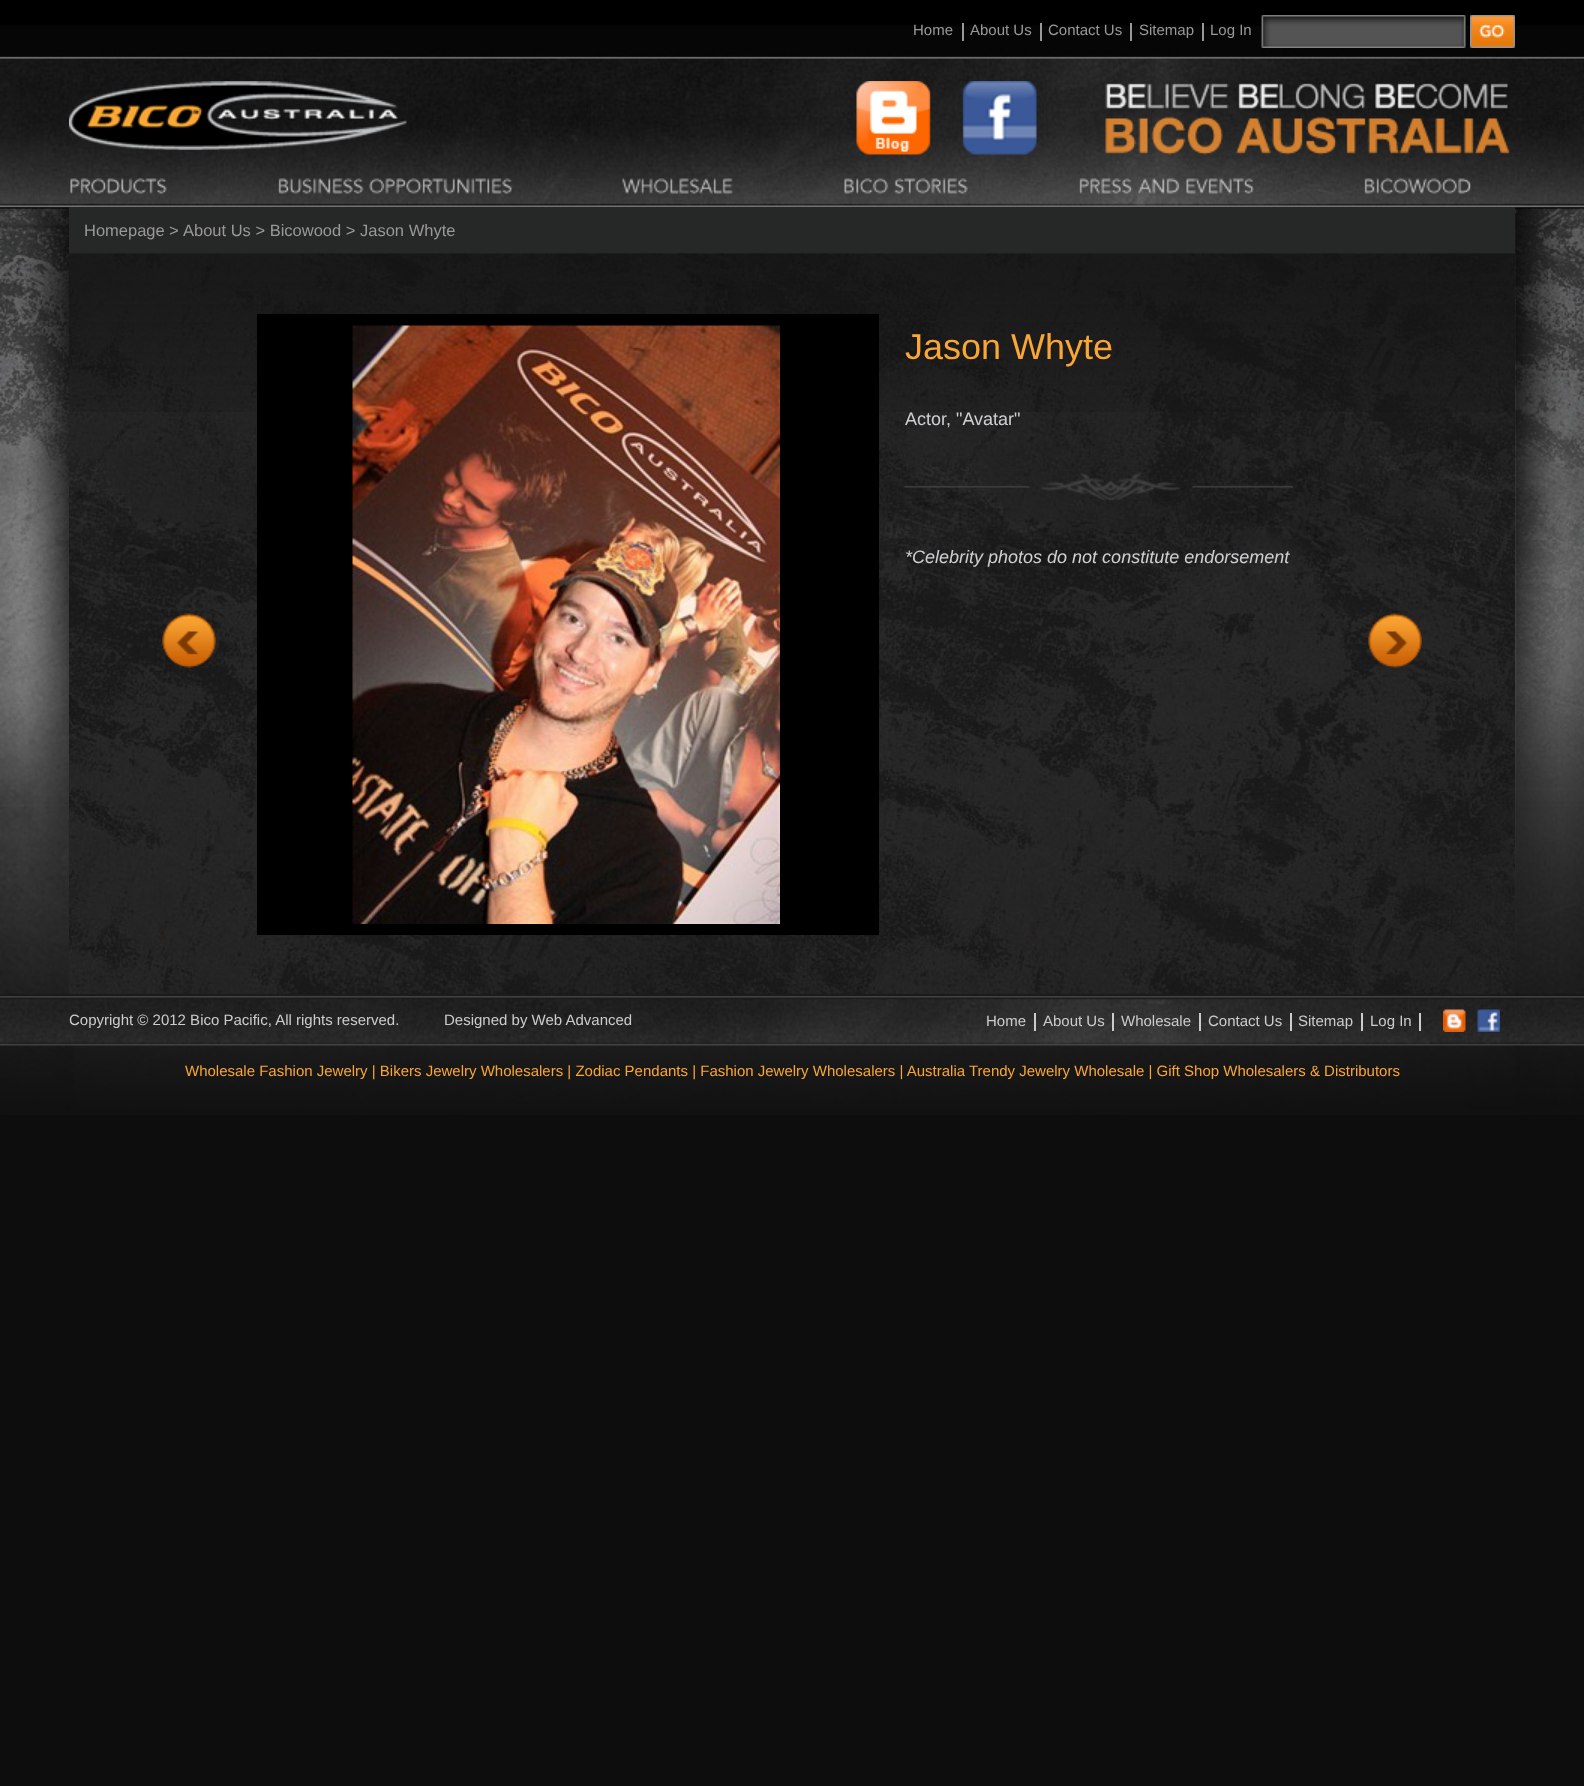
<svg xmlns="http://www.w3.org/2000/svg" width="1584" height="1786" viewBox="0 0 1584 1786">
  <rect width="100%" height="100%" fill="#0d0d0d"/>
  <image x="0" y="0" width="1584" height="1115" href="img/1.png"/>
  <path d="M962 23h2v18H962z" fill="#999"/>
  <path d="M1040 23h2v18H1040z" fill="#999"/>
  <path d="M1130 23h2v18H1130z" fill="#999"/>
  <path d="M1202 23h2v18H1202z" fill="#999"/>
  <image x="1260" y="15" width="206" height="33" href="img/2.png"/>
  <image x="1470" y="15" width="45" height="33" href="img/3.png"/>
  <image x="69" y="81" width="338" height="69" href="img/4.png"/>
  <image x="856" y="81" width="181" height="74" href="img/5.png"/>
  <image x="1105" y="83" width="405" height="72" href="img/6.png"/>
  <image x="70" y="178" width="97" height="16" href="img/7.png"/>
  <image x="278" y="178" width="86" height="16" href="img/8.png"/>
  <image x="368" y="178" width="144" height="16" href="img/9.png"/>
  <image x="622" y="178" width="111" height="16" href="img/10.png"/>
  <image x="844" y="178" width="45" height="16" href="img/11.png"/>
  <image x="894" y="178" width="74" height="16" href="img/12.png"/>
  <image x="1079" y="178" width="53" height="16" href="img/13.png"/>
  <image x="1138" y="178" width="42" height="16" href="img/14.png"/>
  <image x="1186" y="178" width="68" height="16" href="img/15.png"/>
  <image x="1364" y="178" width="107" height="16" href="img/16.png"/>
  <path d="M69 207h1446v47H69z" fill="#262727"/>
  <image x="0" y="994" width="1584" height="52" href="img/23.png"/>
  <path d="M69 994h1358v1H69z" fill="#1a1a1a"/>
  <image x="69" y="253" width="1446" height="741" href="img/17.png"/>
  <image x="69" y="253" width="1446" height="159" href="img/18.png"/>
  <path d="M257 314h622v621H257z" fill="#000"/>
  <image x="352" y="325" width="428" height="599" href="img/19.png"/>
  <image x="904" y="472" width="389" height="29" href="img/20.png"/>
  <image x="162" y="613" width="54" height="55" href="img/21.png"/>
  <image x="1368" y="613" width="54" height="55" href="img/22.png"/>
  <path d="M1034 1013h2v18H1034z" fill="#ccc"/>
  <path d="M1112 1013h2v18H1112z" fill="#ccc"/>
  <path d="M1199 1013h2v18H1199z" fill="#ccc"/>
  <path d="M1290 1013h2v18H1290z" fill="#ccc"/>
  <path d="M1361 1013h2v18H1361z" fill="#ccc"/>
  <path d="M1419 1013h2v18H1419z" fill="#ccc"/>
  <image x="1443" y="1009" width="23" height="23" href="img/24.png"/>
  <image x="1477" y="1009" width="23" height="23" href="img/25.png"/>
  <g font-family="Liberation Sans" font-size="15" fill="#999">
    <text x="913" y="35">Home</text>
    <text x="970" y="35">About Us</text>
    <text x="1048" y="35">Contact Us</text>
    <text x="1139" y="35">Sitemap</text>
    <text x="1210" y="35">Log In</text>
  </g>
  <g font-family="Liberation Sans" font-size="16.5" fill="#999">
    <text x="84" y="236">Homepage</text>
    <text x="169" y="236">&gt;</text>
    <text x="183" y="236">About Us &gt; Bicowood &gt; Jason Whyte</text>
  </g>
  <text x="905" y="359" font-family="Liberation Sans" font-size="36" fill="#faa634">Jason Whyte</text>
  <text x="905" y="425" font-family="Liberation Sans" font-size="18" fill="#ced0d2">Actor, "Avatar"</text>
  <text x="905" y="563" font-family="Liberation Sans" font-size="18" font-style="italic" fill="#ced0d2">*Celebrity photos do not constitute endorsement</text>
  <g font-family="Liberation Sans" font-size="15" fill="#ccc">
    <text x="69" y="1025">Copyright © 2012 Bico Pacific, All rights reserved.</text>
    <text x="444" y="1025">Designed by Web Advanced</text>
    <text x="986" y="1026">Home</text>
    <text x="1043" y="1026">About Us</text>
    <text x="1121" y="1026">Wholesale</text>
    <text x="1208" y="1026">Contact Us</text>
    <text x="1298" y="1026">Sitemap</text>
    <text x="1370" y="1026">Log In</text>
  </g>
  <text x="185" y="1076" font-family="Liberation Sans" font-size="15" fill="#faa634">Wholesale Fashion Jewelry | Bikers Jewelry Wholesalers | Zodiac Pendants | Fashion Jewelry Wholesalers | Australia Trendy Jewelry Wholesale | Gift Shop Wholesalers &amp; Distributors</text>
</svg>
